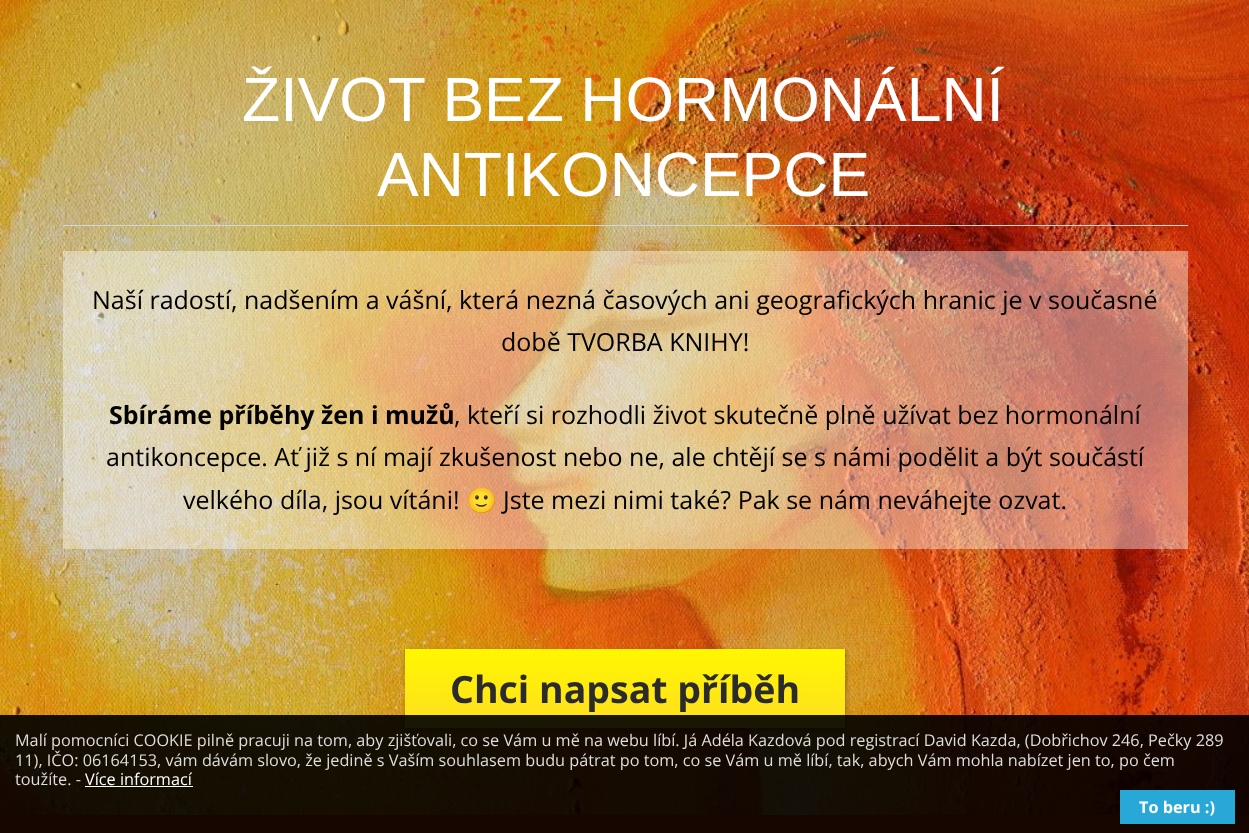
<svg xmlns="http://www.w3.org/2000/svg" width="1249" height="833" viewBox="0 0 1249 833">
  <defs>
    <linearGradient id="g1" gradientUnits="userSpaceOnUse" x1="625" y1="649" x2="625" y2="728"><stop offset="0" stop-color="#fff700"/><stop offset="1" stop-color="#ffde21"/></linearGradient>
  </defs>
  <rect width="100%" height="100%" fill="#fff"/>
  <image x="0" y="0" width="1249" height="815" href="img/1.png"/>
  <path d="M63 225h1125v1H63z" fill="#d5d5d5"/>
  <path d="M63 251h1125v298H63z" fill="#ffffff69"/>
  <path d="M406 651h440v79H406z" fill="#0000004d" filter="blur(2px)"/>
  <path d="M405 649h440v79H405z" fill="url(#g1)"/>
  <path d="M0 815h1249v18H0z" fill="#eb3e05"/>
  <path d="M0 715h1249v118H0z" fill="#000000e6"/>
  <path d="M85 786h108v1H85z" fill="#fff"/>
  <path d="M1120 790h115v34H1120z" fill="#27a8d7"/>
  <g font-family="Arimo" font-size="62.5" fill="#fff">
    <text x="242" y="121" word-spacing="-1">ŽIVOT BEZ HORMONÁLNÍ</text>
    <text x="377" y="196">ANTIKONCEPCE</text>
  </g>
  <g font-family="Open Sans" font-size="25" fill="#000">
    <text x="92" y="309">Naší radostí, nadšením a vášní, která nezná časových ani geografických hranic je v současné</text>
    <text x="501" y="351">době TVORBA KNIHY!</text>
  </g>
  <text x="109" y="424" font-family="Open Sans" font-size="25" font-weight="bold" fill="#000">Sbíráme příběhy žen i mužů</text>
  <g font-family="Open Sans" font-size="25" fill="#000">
    <text x="454" y="424">, kteří si rozhodli život skutečně plně užívat bez hormonální</text>
    <text x="106" y="466">antikoncepce. Ať již s ní mají zkušenost nebo ne, ale chtějí se s námi podělit a být součástí</text>
    <text x="183" y="509">velkého díla, jsou vítáni!</text>
  </g>
  <text x="466" y="509" font-family="Noto Color Emoji" font-size="25" fill="#000">🙂</text>
  <text x="503" y="509" font-family="Open Sans" font-size="25" fill="#000">Jste mezi nimi také? Pak se nám neváhejte ozvat.</text>
  <text x="450" y="703" font-family="Open Sans" font-size="37.5" font-weight="bold" fill="#2b2b2b">Chci napsat příběh</text>
  <g font-family="Open Sans" font-size="16.25" fill="#ddd">
    <text x="15" y="746">Malí pomocníci COOKIE pilně pracuji na tom, aby zjišťovali, co se Vám u mě na webu líbí. Já Adéla Kazdová pod registrací David Kazda, (Dobřichov 246, Pečky 289</text>
    <text x="15" y="766">11), IČO: 06164153, vám dávám slovo, že jedině s Vaším souhlasem budu pátrat po tom, co se Vám u mě líbí, tak, abych Vám mohla nabízet jen to, po čem</text>
    <text x="15" y="785">toužíte. -</text>
  </g>
  <text x="85" y="785" font-family="Open Sans" font-size="16.25" fill="#fff">Více informací</text>
  <text x="1139" y="813" font-family="Open Sans" font-size="16.25" font-weight="bold" fill="#fff">To beru :)</text>
</svg>
